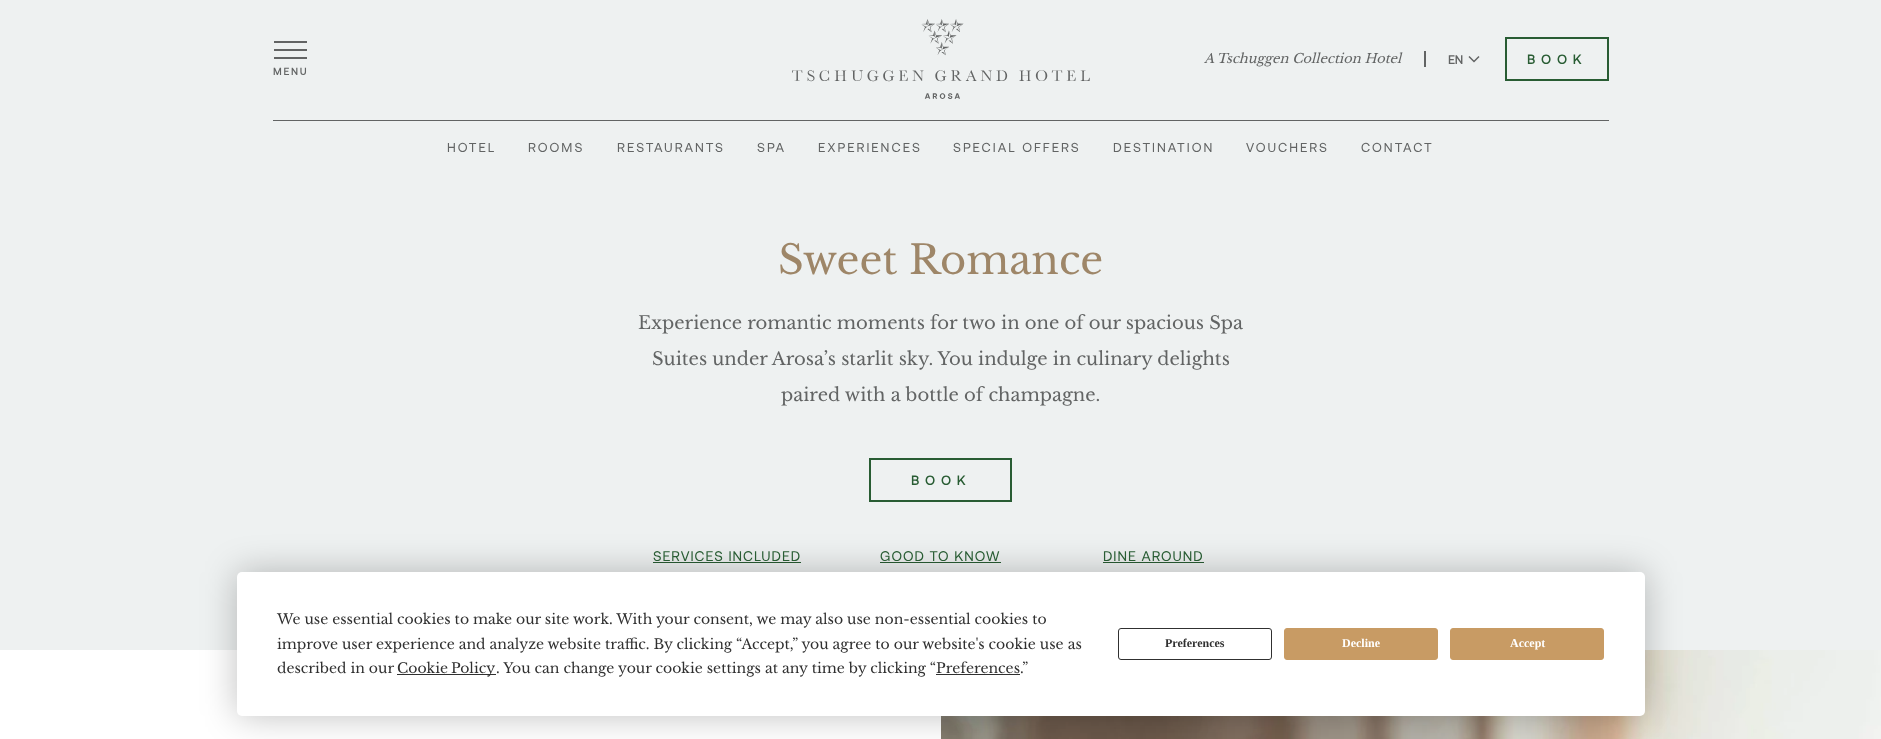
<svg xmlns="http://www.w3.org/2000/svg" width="1881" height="739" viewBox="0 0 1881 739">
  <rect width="100%" height="100%" fill="#eef1f1"/>
  <image x="792" y="19" width="298" height="80" href="img/1.png"/>
  <path d="M1424 51h2v16H1424z" fill="#626464"/>
  <path d="M1479 56.5L1474 61.5L1469 56.5" fill="none" stroke="#626464" stroke-width="1.5"/>
  <path d="M1506 38h102v42H1506z" fill="none" stroke="#285c33" stroke-width="2"/>
  <path d="M274 41h33v2H274z" fill="#626464"/>
  <path d="M274 49h33v2H274z" fill="#626464"/>
  <path d="M274 57h33v2H274z" fill="#626464"/>
  <path d="M273 120h1336v1H273z" fill="#626464"/>
  <path d="M870 459h141v42H870z" fill="none" stroke="#285c33" stroke-width="2"/>
  <path d="M653 562h148v1H653z" fill="#285c33"/>
  <path d="M880 562h121v1H880z" fill="#285c33"/>
  <path d="M1103 562h101v1H1103z" fill="#285c33"/>
  <path d="M0 650h941v89H0z" fill="#fff"/>
  <image x="941" y="650" width="940" height="89" href="img/2.png"/>
  <rect x="237" y="572" width="1408" height="144" rx="5" fill="#00000040" filter="blur(17.5px)"/>
  <rect x="237" y="572" width="1408" height="144" rx="5" fill="#fff"/>
  <path d="M397 674h99v1H397z" fill="#303030"/>
  <path d="M936 674h84v1H936z" fill="#303030"/>
  <rect x="1118.5" y="628.5" width="153" height="31" rx="2.5" fill="none" stroke="#303030"/>
  <rect x="1284.5" y="628.5" width="153" height="31" rx="2.5" fill="#c89b64" stroke="#c89b64"/>
  <rect x="1450.5" y="628.5" width="153" height="31" rx="2.5" fill="#c89b64" stroke="#c89b64"/>
  <text x="1204" y="63" font-family="Libre Baskerville" font-size="13" font-style="italic" fill="#626464">A Tschuggen Collection Hotel</text>
  <text x="1448" y="64" font-family="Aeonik" font-size="12" font-weight="bold" fill="#626464">EN</text>
  <text x="1527" y="64" font-family="Aeonik" font-size="13" font-weight="bold" letter-spacing="6" fill="#285c33">BOOK</text>
  <text x="273" y="75" font-family="Aeonik" font-size="10" font-weight="bold" letter-spacing="2" fill="#626464">MENU</text>
  <g font-family="Aeonik" font-size="13" letter-spacing="2" fill="#626464">
    <text x="447" y="152">HOTEL</text>
    <text x="528" y="152">ROOMS</text>
    <text x="617" y="152">RESTAURANTS</text>
    <text x="757" y="152">SPA</text>
    <text x="818" y="152">EXPERIENCES</text>
    <text x="953" y="152">SPECIAL OFFERS</text>
    <text x="1113" y="152">DESTINATION</text>
    <text x="1246" y="152">VOUCHERS</text>
    <text x="1361" y="152">CONTACT</text>
  </g>
  <text x="778" y="274" font-family="Libre Baskerville" font-size="40" fill="#9e8668">Sweet Romance</text>
  <g font-family="Libre Baskerville" font-size="18" fill="#626464">
    <text x="638" y="329">Experience romantic moments for two in one of our spacious Spa</text>
    <text x="652" y="365">Suites under Arosa’s starlit sky. You indulge in culinary delights</text>
    <text x="781" y="401">paired with a bottle of champagne.</text>
  </g>
  <text x="911" y="485" font-family="Aeonik" font-size="13" font-weight="bold" letter-spacing="6" fill="#285c33">BOOK</text>
  <g font-family="Aeonik" font-size="14" letter-spacing="1" fill="#285c33">
    <text x="653" y="561">SERVICES INCLUDED</text>
    <text x="880" y="561">GOOD TO KNOW</text>
    <text x="1103" y="561">DINE AROUND</text>
  </g>
  <g font-family="Libre Baskerville" font-size="14" fill="#303030">
    <text x="277" y="624">We use essential cookies to make our site work. With your consent, we may also use non-essential cookies to</text>
    <text x="277" y="649">improve user experience and analyze website traffic. By clicking “Accept,” you agree to our website's cookie use as</text>
    <text x="277" y="673">described in our</text>
    <text x="397" y="673" word-spacing="-1">Cookie Policy</text>
    <text x="496" y="673">. You can change your cookie settings at any time by clicking “Preferences.”</text>
  </g>
  <text x="1165" y="647" font-family="Liberation Serif" font-size="12" font-weight="bold" fill="#303030">Preferences</text>
  <g font-family="Liberation Serif" font-size="12" font-weight="bold" fill="#fff">
    <text x="1342" y="647">Decline</text>
    <text x="1510" y="647">Accept</text>
  </g>
</svg>
